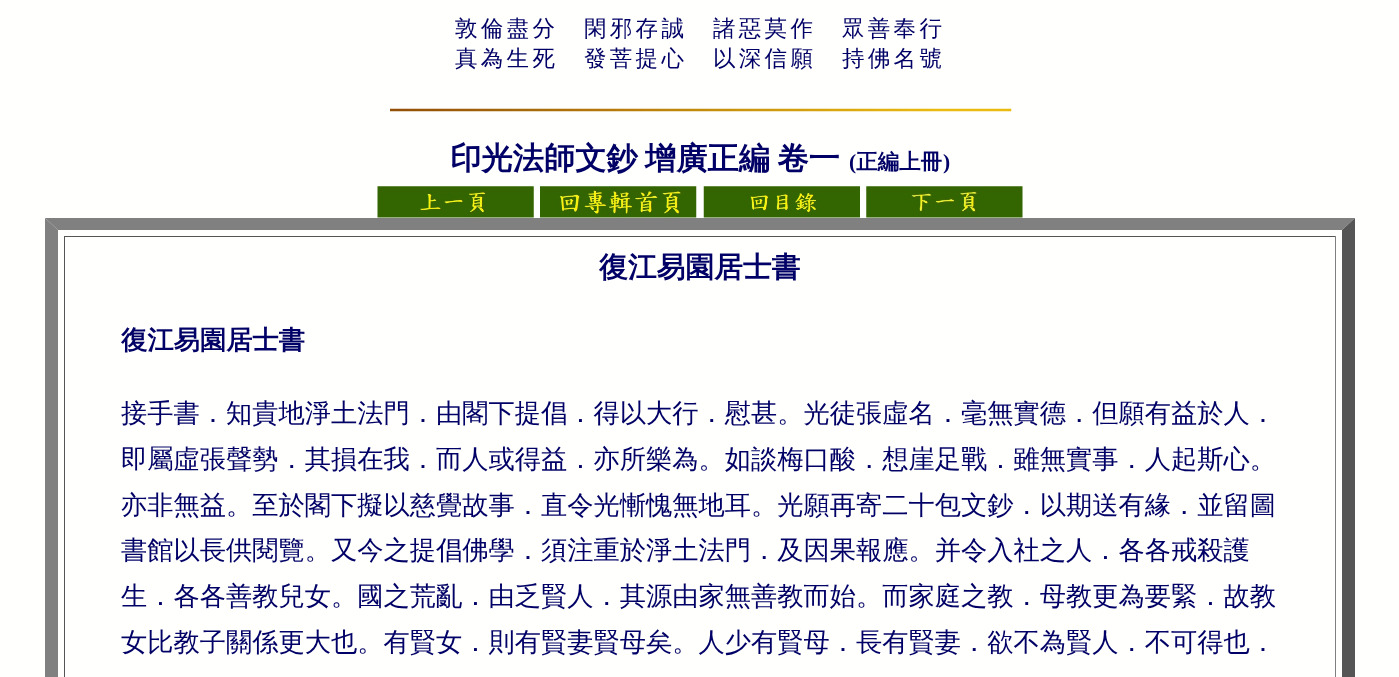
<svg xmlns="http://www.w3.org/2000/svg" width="1399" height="677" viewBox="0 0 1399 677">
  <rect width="100%" height="100%" fill="#fffffd"/>
  <image x="390" y="108" width="622" height="4" href="img/1.png"/>
  <image x="377" y="186" width="157" height="32" href="img/2.png"/>
  <image x="540" y="186" width="157" height="32" href="img/3.png"/>
  <image x="703" y="186" width="157" height="32" href="img/4.png"/>
  <image x="866" y="186" width="157" height="32" href="img/5.png"/>
  <path d="M45 218H1355L1342 230H58Z" fill="#808080"/>
  <path d="M1355 218V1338L1342 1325V230Z" fill="#555"/>
  <path d="M45 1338V218L58 230V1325Z" fill="#808080"/>
  <path d="M64 236h1272v1H64z" fill="#555"/>
  <path d="M1335 236h1v441H1335z" fill="#808080"/>
  <path d="M64 236h1v441H64z" fill="#555"/>
  <g font-family="WenQuanYi Zen Hei" font-size="22.5" font-weight="500" letter-spacing="3.3" fill="#006">
    <text x="455" y="36">敦倫盡分　閑邪存誠　諸惡莫作　眾善奉行</text>
    <text x="455" y="66">真為生死　發菩提心　以深信願　持佛名號</text>
  </g>
  <text x="450" y="169" word-spacing="-2" font-family="WenQuanYi Zen Hei" font-size="31.25" font-weight="bold" fill="#006">印光法師文鈔 增廣正編 卷一</text>
  <text x="849" y="169" font-family="Liberation Serif" font-size="21.5" font-weight="bold" fill="#006">(</text>
  <text x="856" y="169" font-family="WenQuanYi Zen Hei" font-size="21.5" font-weight="bold" fill="#006">正編上冊</text>
  <text x="943" y="169" font-family="Liberation Serif" font-size="21.5" font-weight="bold" fill="#006">)</text>
  <text x="599" y="277" font-family="WenQuanYi Zen Hei" font-size="28.75" font-weight="bold" fill="#006">復江易園居士書</text>
  <text x="121" y="349" font-family="WenQuanYi Zen Hei" font-size="26.25" font-weight="bold" fill="#006">復江易園居士書</text>
  <g font-family="WenQuanYi Zen Hei" font-size="26.25" font-weight="500" fill="#006">
    <text x="121" y="422">接手書．知貴地淨土法門．由閣下提倡．得以大行．慰甚。光徒張虛名．毫無實德．但願有益於人．</text>
    <text x="121" y="468">即屬虛張聲勢．其損在我．而人或得益．亦所樂為。如談梅口酸．想崖足戰．雖無實事．人起斯心。</text>
    <text x="121" y="514">亦非無益。至於閣下擬以慈覺故事．直令光慚愧無地耳。光願再寄二十包文鈔．以期送有緣．並留圖</text>
    <text x="121" y="559">書館以長供閱覽。又今之提倡佛學．須注重於淨土法門．及因果報應。并令入社之人．各各戒殺護</text>
    <text x="121" y="605">生．各各善教兒女。國之荒亂．由乏賢人．其源由家無善教而始。而家庭之教．母教更為要緊．故教</text>
    <text x="121" y="651">女比教子關係更大也。有賢女．則有賢妻賢母矣。人少有賢母．長有賢妻．欲不為賢人．不可得也．</text>
  </g>
</svg>
